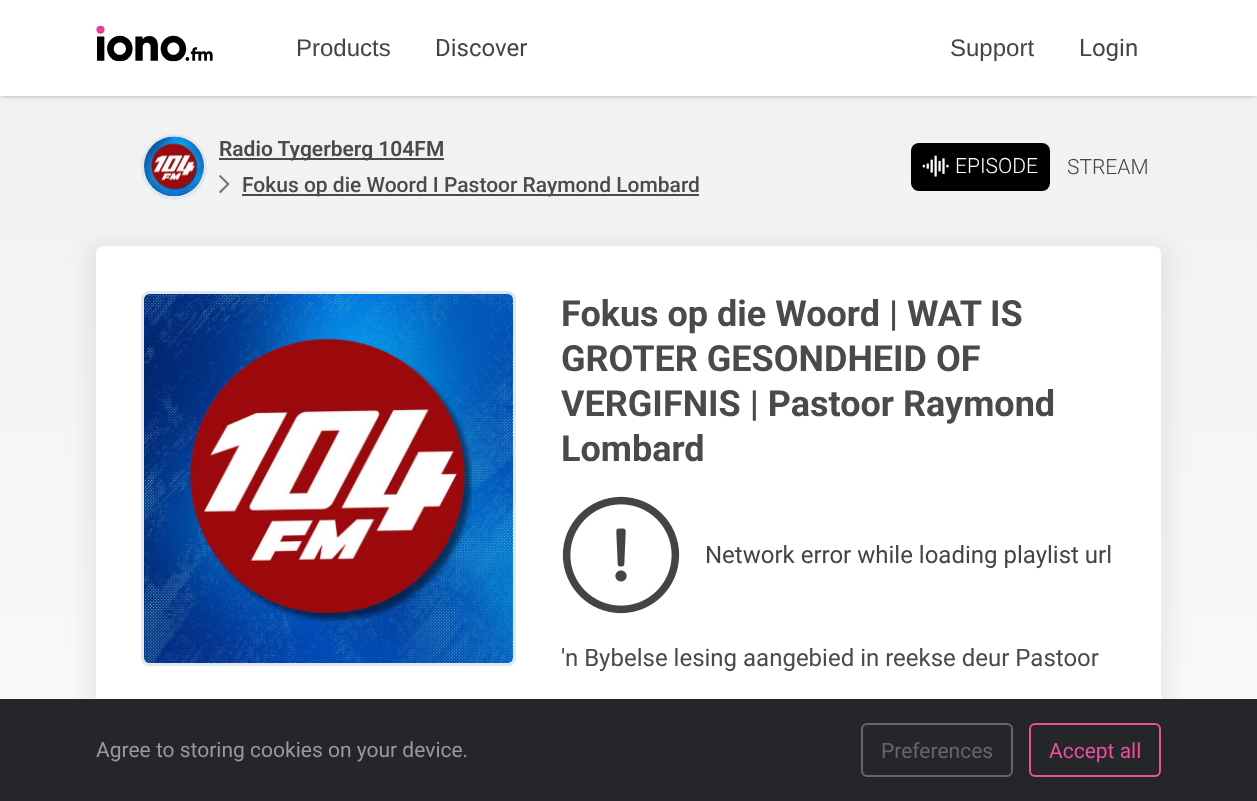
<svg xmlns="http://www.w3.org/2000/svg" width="1257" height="801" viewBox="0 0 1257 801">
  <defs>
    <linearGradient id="g1" gradientUnits="userSpaceOnUse" x1="628" y1="0" x2="629" y2="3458"><stop offset="0" stop-color="#f0f0f0"/><stop offset="0.35" stop-color="#fff"/><stop offset="1" stop-color="#fcfcfa"/></linearGradient>
  </defs>
  <rect width="100%" height="100%" fill="#fff"/>
  <path d="M0 96h1257v603H0z" fill="url(#g1)"/>
  <path d="M2 3h1254v93H2z" fill="#0000004d" filter="blur(2px)"/>
  <path d="M0 0h1257v96H0z" fill="#fff"/>
  <image x="96" y="25" width="117" height="37" href="img/1.png"/>
  <circle cx="174" cy="167" r="31.5" fill="#fff" stroke="#e1e8ed" stroke-width="3"/>
  <image x="144" y="136" width="60" height="61" href="img/2.png"/>
  <path d="M219 158h225v2H219z" fill="#4a4a4a"/>
  <image x="219" y="175" width="11" height="19" href="img/3.png"/>
  <path d="M242 194h457v2H242z" fill="#4a4a4a"/>
  <rect x="911" y="143" width="139" height="48" rx="8" fill="#000"/>
  <image x="922" y="155" width="27" height="22" href="img/4.png"/>
  <rect x="84" y="240" width="1089" height="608" rx="20" fill="#0000000d" filter="blur(9px)"/>
  <rect x="96" y="246" width="1065" height="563" rx="8" fill="#fff"/>
  <rect x="142.5" y="292.5" width="372" height="372" rx="6.5" fill="#e1e8ed" stroke="#e1e8ed" stroke-width="3"/>
  <image x="144" y="294" width="369" height="369" href="img/5.png"/>
  <image x="562" y="496" width="118" height="118" href="img/6.png"/>
  <path d="M0 699h1257v102H0z" fill="#252629"/>
  <rect x="862" y="724" width="150" height="52" rx="5" fill="none" stroke="#666" stroke-width="2"/>
  <rect x="1030" y="724" width="130" height="52" rx="5" fill="none" stroke="#ed4f9f" stroke-width="2"/>
  <text x="296" y="56" font-family="Liberation Sans" font-size="24" fill="#444">Products</text>
  <text x="435" y="56" font-family="Roboto" font-size="24" fill="#444">Discover</text>
  <text x="950" y="56" font-family="Liberation Sans" font-size="24" fill="#444">Support</text>
  <text x="1079" y="56" font-family="Roboto" font-size="24" fill="#444">Login</text>
  <text x="219" y="156" font-family="Roboto" font-size="21" font-weight="600" fill="#4a4a4a">Radio Tygerberg 104FM</text>
  <text x="242" y="192" font-family="Roboto" font-size="21" font-weight="500" fill="#4a4a4a">Fokus op die Woord I Pastoor Raymond Lombard</text>
  <text x="955" y="173" font-family="Roboto" font-size="21" font-weight="300" fill="#fff">EPISODE</text>
  <text x="1067" y="174" font-family="Roboto" font-size="21" font-weight="300" fill="#444">STREAM</text>
  <g font-family="Roboto" font-size="36" font-weight="bold" fill="#4a4a4a">
    <text x="561" y="326">Fokus op die Woord | WAT IS</text>
    <text x="561" y="371">GROTER GESONDHEID OF</text>
    <text x="561" y="416">VERGIFNIS | Pastoor Raymond</text>
    <text x="561" y="461">Lombard</text>
  </g>
  <text x="705" y="563" font-family="Roboto" font-size="24" fill="#444">Network error while loading playlist url</text>
  <text x="561" y="666" font-family="Roboto" font-size="24" fill="#4a4a4a">'n Bybelse lesing aangebied in reekse deur Pastoor</text>
  <text x="96" y="757" font-family="Roboto" font-size="21" fill="#999">Agree to storing cookies on your device.</text>
  <text x="881" y="758" font-family="Roboto" font-size="21" fill="#666">Preferences</text>
  <text x="1049" y="758" font-family="Roboto" font-size="21" fill="#ed4f9f">Accept all</text>
</svg>
